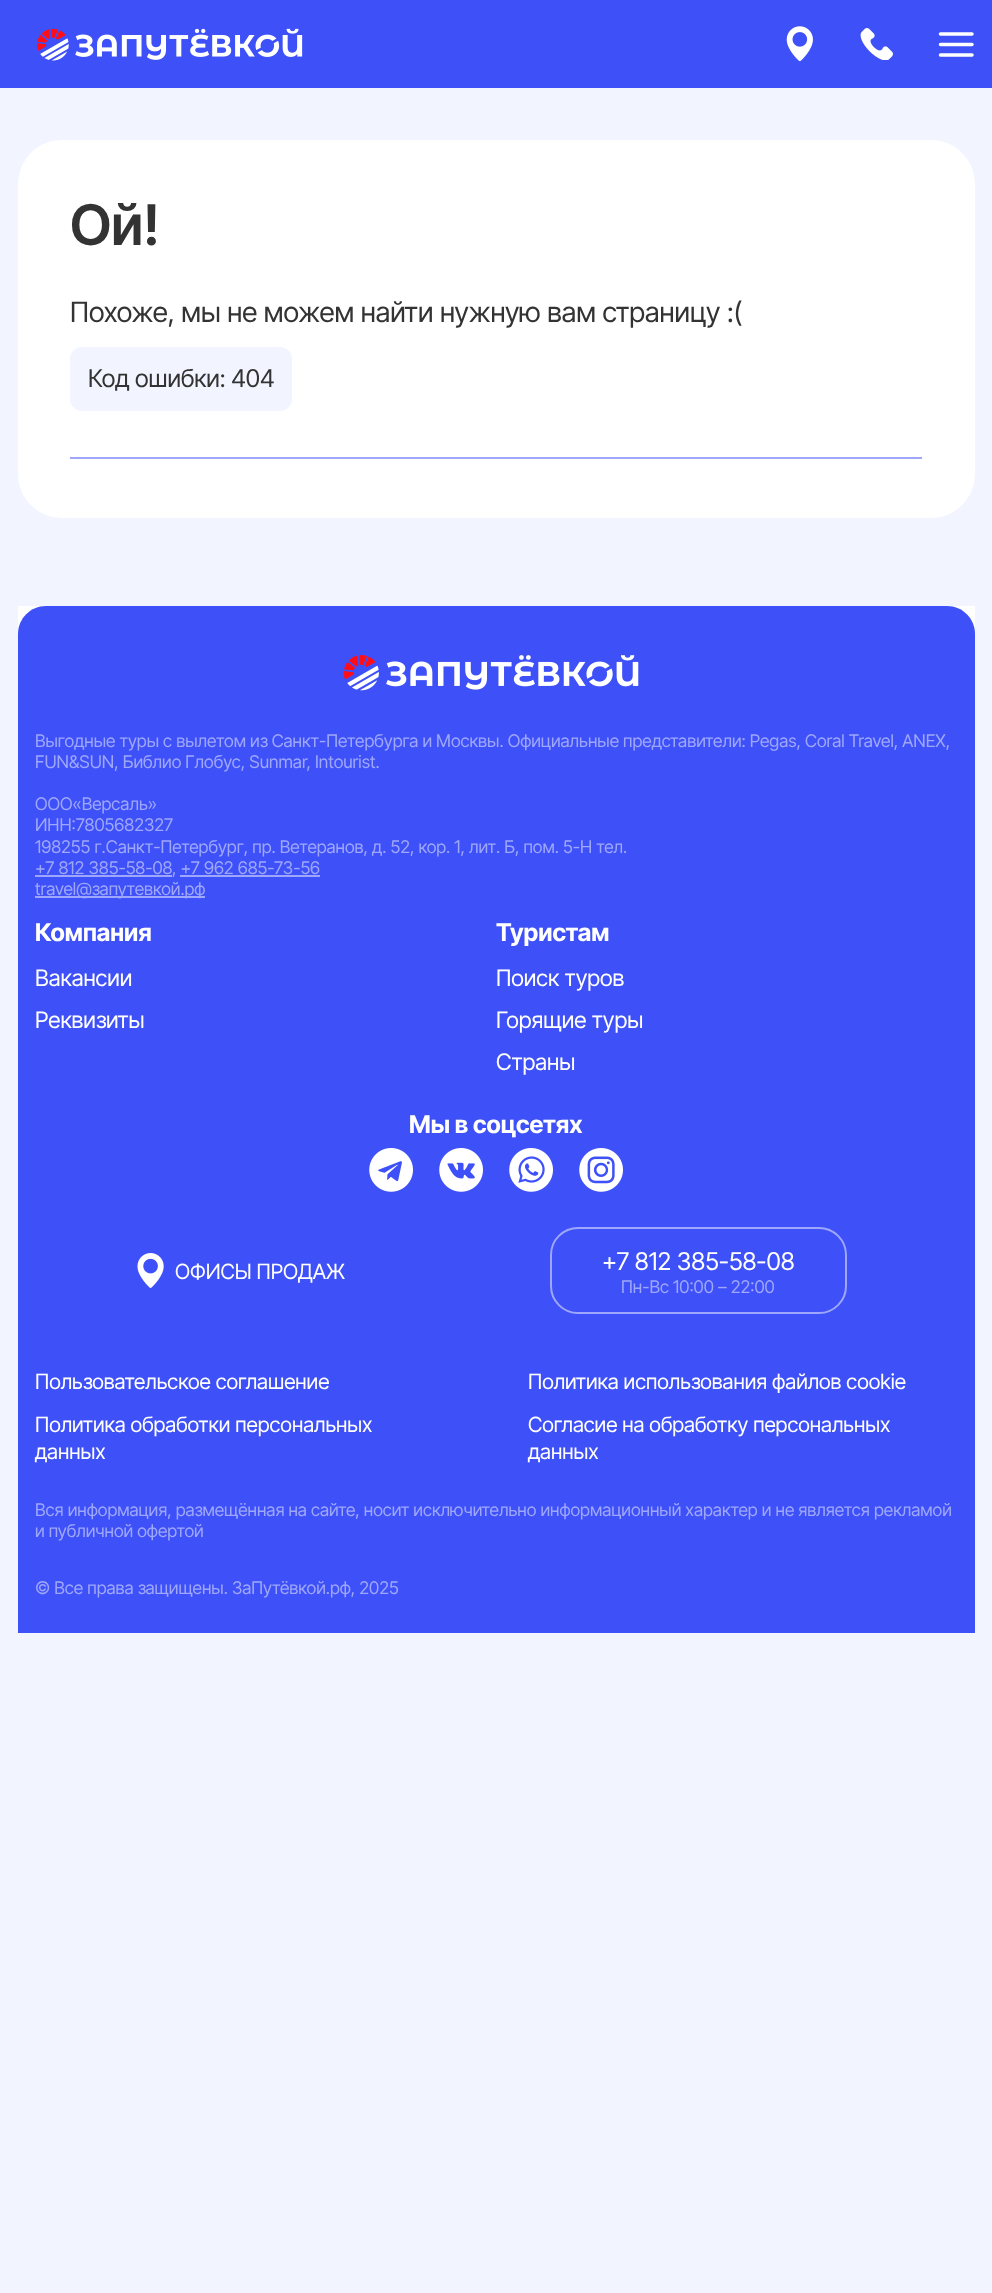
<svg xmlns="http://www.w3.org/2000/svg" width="992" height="2293">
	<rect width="100%" height="100%" fill="#F2F5FF" />
	<rect x="0" y="0" width="992" height="88" fill="#3E50F8" />
	<image x="37" y="28" width="266" height="33" href="assets/img1.png" />
	<image x="786" y="26" width="27" height="35" href="assets/img2.png" />
	<image x="860" y="28" width="33" height="32" href="assets/img3.png" />
	<path d="M940.5 34H972M940.5 44.5H972M940.5 55H972" fill="none" stroke="#FFFFFF" stroke-width="3.5" stroke-linecap="round" />
	<rect x="18" y="140" width="957" height="378" rx="44" fill="#FFFFFF" />
	<text x="70" y="245" font-family="Inter Tight" font-size="56" font-weight="600" fill="#333333">Ой!</text>
	<text x="70" y="322" font-family="Inter Tight" font-size="28" fill="#333333">Похоже, мы не можем найти нужную вам страницу :(</text>
	<rect x="70" y="347" width="222" height="64" rx="12" fill="#F2F5FF" />
	<text x="88" y="387" font-family="Inter Tight" font-size="24.5" fill="#333333">Код ошибки: 404</text>
	<rect x="70" y="457" width="852" height="2" fill="#9EA7FB" />
	<rect x="18" y="606" width="957" height="28" fill="#FFFFFF" />
	<path d="M46 606H947C962.5 606 975 618.5 975 634V1633H18V634C18 618.5 30.5 606 46 606Z" fill="#3E50F8" />
	<image x="343" y="655" width="296" height="36" href="assets/img4.png" />
	<g font-family="Inter Tight" font-size="17.5" fill="#9EA7FB">
		<text x="35" y="747">Выгодные туры с вылетом из Санкт-Петербурга и Москвы. Официальные представители: Pegas, Coral Travel, ANEX,</text>
		<text x="35" y="768">FUN&amp;SUN, Библио Глобус, Sunmar, Intourist.</text>
		<text x="35" y="810">ООО«Версаль»</text>
		<text x="35" y="831">ИНН:7805682327</text>
		<text x="35" y="853">198255 г.Санкт-Петербург, пр. Ветеранов, д. 52, кор. 1, лит. Б, пом. 5-Н тел.</text>
		<text x="35" y="874">+7 812 385-58-08</text>
	</g>
	<rect x="35" y="875" width="137" height="2" fill="#9EA7FB" />
	<text x="172" y="874" font-family="Inter Tight" font-size="17.5" fill="#9EA7FB">, +7 962 685-73-56</text>
	<rect x="180" y="875" width="140" height="2" fill="#9EA7FB" />
	<rect x="35" y="896" width="170" height="2" fill="#9EA7FB" />
	<text x="35" y="895" font-family="Inter Tight" font-size="17.5" fill="#9EA7FB">travel@запутевкой.рф</text>
	<text x="35" y="941" font-family="Inter Tight" font-size="24.5" font-weight="700" fill="#FFFFFF">Компания</text>
	<g font-family="Inter Tight" font-size="22.75" fill="#FFFFFF">
		<text x="35" y="986">Вакансии</text>
		<text x="35" y="1028">Реквизиты</text>
	</g>
	<text x="496" y="941" font-family="Inter Tight" font-size="24.5" font-weight="700" fill="#FFFFFF">Туристам</text>
	<g font-family="Inter Tight" font-size="22.75" fill="#FFFFFF">
		<text x="496" y="986">Поиск туров</text>
		<text x="496" y="1028">Горящие туры</text>
		<text x="496" y="1070">Страны</text>
	</g>
	<text x="409" y="1133" font-family="Inter Tight" font-size="24.5" font-weight="700" fill="#FFFFFF">Мы в соцсетях</text>
	<image x="369" y="1148" width="44" height="44" href="assets/img5.png" />
	<image x="439" y="1148" width="44" height="44" href="assets/img6.png" />
	<image x="509" y="1148" width="44" height="44" href="assets/img7.png" />
	<image x="579" y="1148" width="44" height="44" href="assets/img8.png" />
	<image x="137" y="1253" width="27" height="35" href="assets/img9.png" />
	<text x="175" y="1279" font-family="Inter Tight" font-size="21" fill="#FFFFFF">ОФИСЫ ПРОДАЖ</text>
	<rect x="551" y="1228" width="295" height="85" rx="27" fill="none" stroke="#9EA7FB" stroke-width="2" />
	<text x="602" y="1270" font-family="Inter Tight" font-size="24.5" fill="#FFFFFF">+7 812 385-58-08</text>
	<text x="621" y="1293" font-family="Inter Tight" font-size="17.5" fill="#9EA7FB">Пн-Вс 10:00 – 22:00</text>
	<g font-family="Inter Tight" font-size="21" fill="#FFFFFF">
		<text x="35" y="1389">Пользовательское соглашение</text>
		<text x="35" y="1432">Политика обработки персональных</text>
		<text x="35" y="1459">данных</text>
		<text x="528" y="1389">Политика использования файлов cookie</text>
		<text x="528" y="1432">Согласие на обработку персональных</text>
		<text x="528" y="1459">данных</text>
	</g>
	<g font-family="Inter Tight" font-size="17.5" fill="#9EA7FB">
		<text x="35" y="1516">Вся информация, размещённая на сайте, носит исключительно информационный характер и не является рекламой</text>
		<text x="35" y="1537">и публичной офертой</text>
		<text x="35" y="1594">© Все права защищены. ЗаПутёвкой.рф, 2025</text>
	</g>
</svg>
